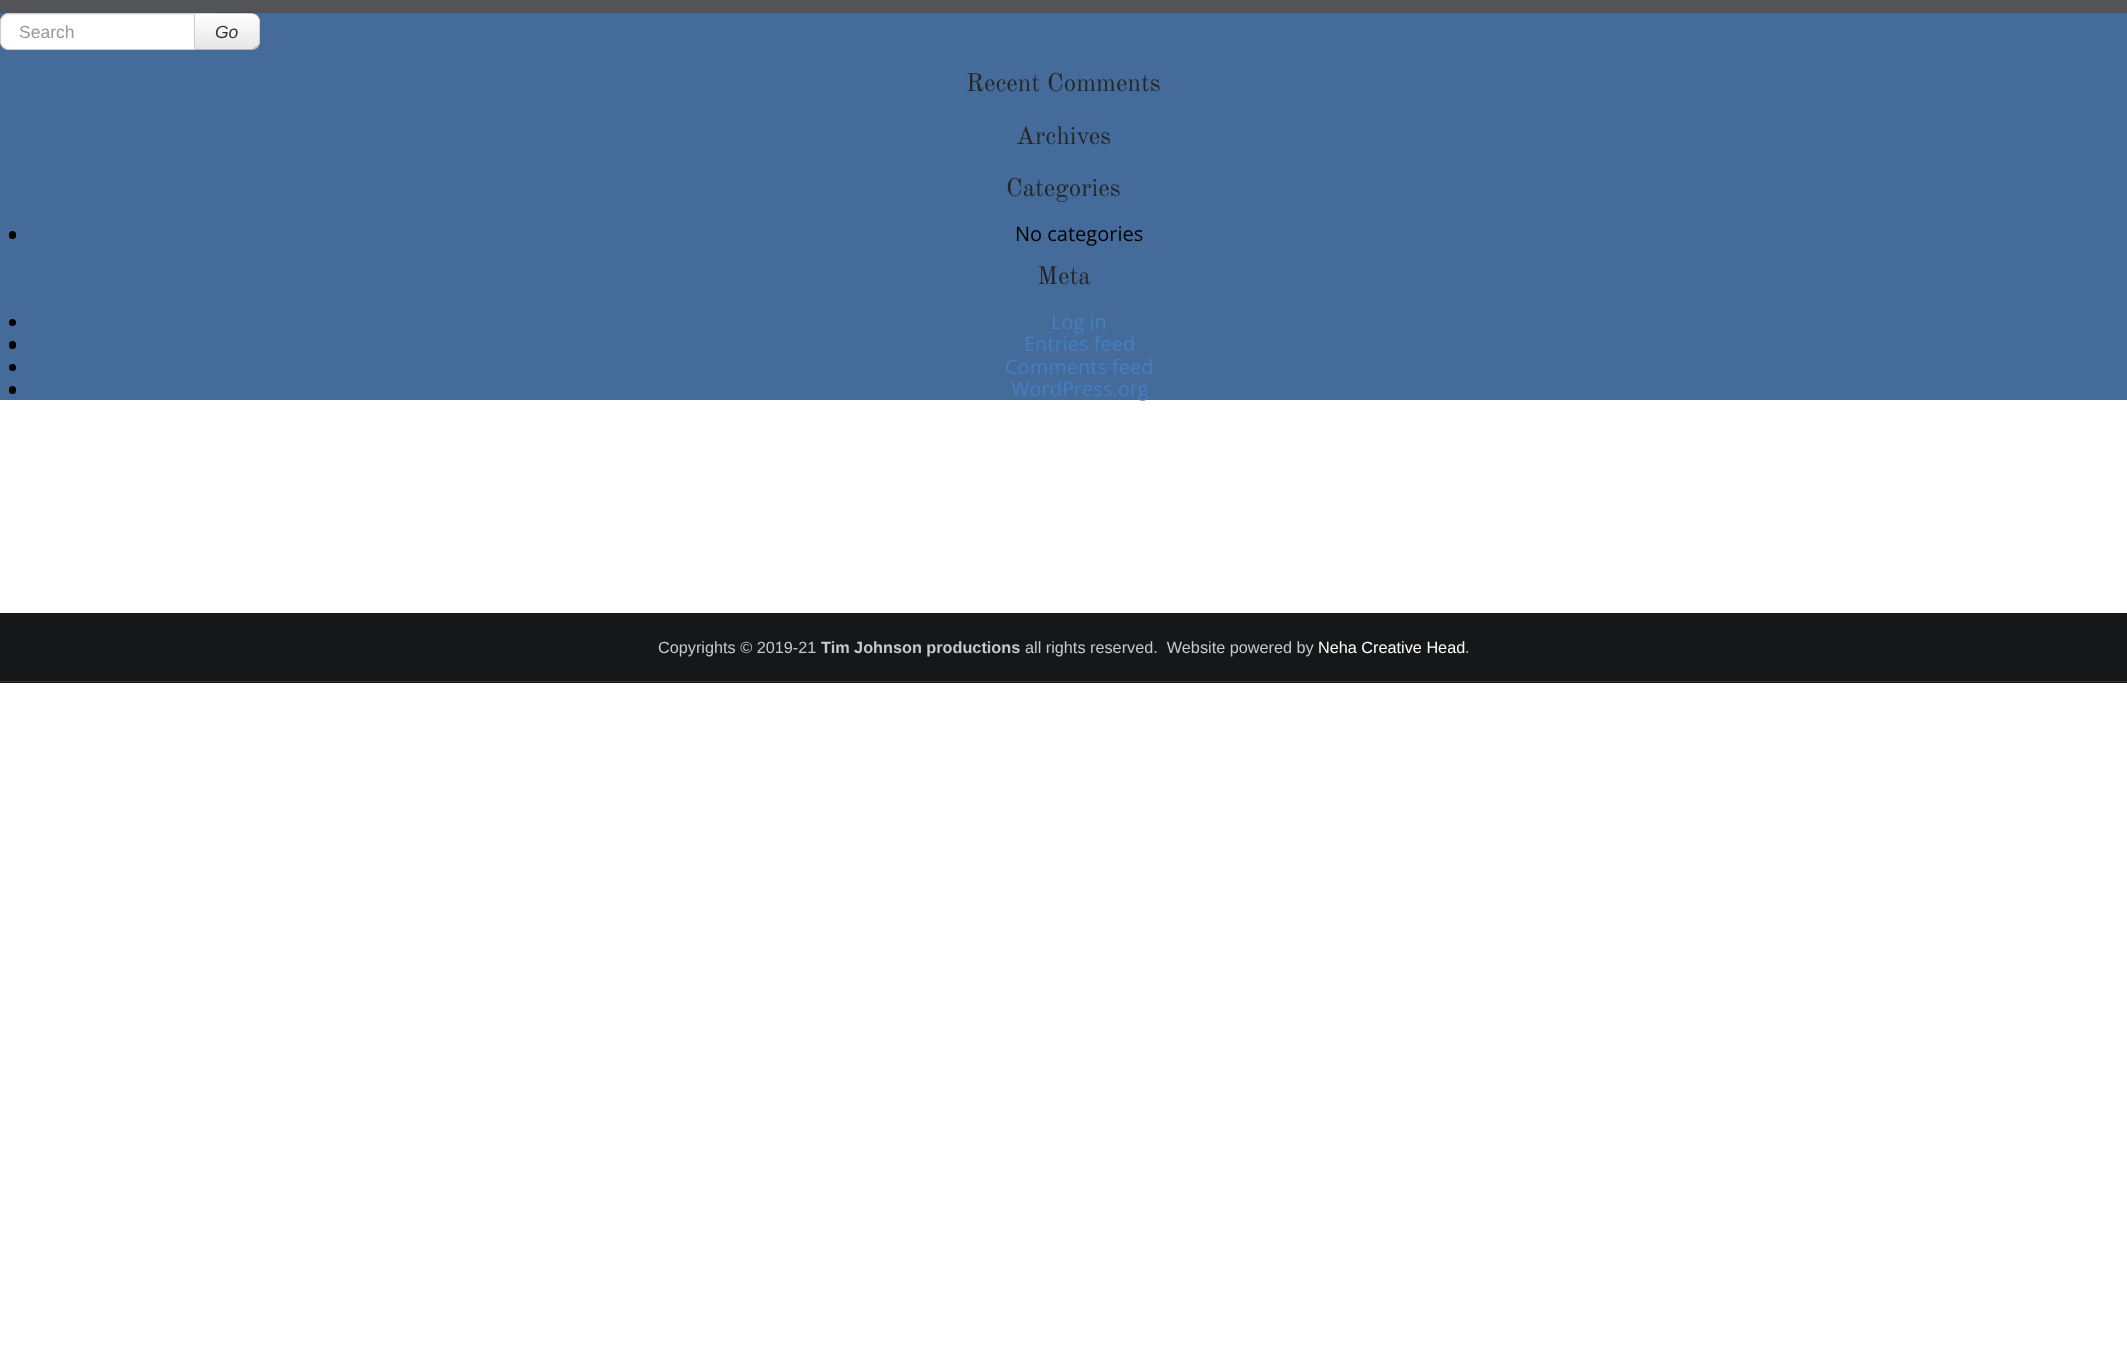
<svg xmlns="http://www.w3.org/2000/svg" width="2127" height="1352">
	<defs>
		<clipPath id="clip1"><path d="M194 13H251C256 13 260 17 260 22V41C260 46 256 50 251 50H194Z" /></clipPath>
		<linearGradient id="g1" gradientUnits="userSpaceOnUse" x1="227" y1="14" x2="227" y2="49"><stop offset="0" stop-color="#FFFFFF" /><stop offset="1" stop-color="#E6E6E6" /></linearGradient>
	</defs>
	<rect width="100%" height="100%" fill="#FFFFFF" />
	<rect x="0" y="13" width="2127" height="387" fill="#446B9A" />
	<rect x="0" y="0" width="2127" height="13" fill="#525458" />
	<path d="M194 13H251C256 13 260 17 260 22V41C260 46 256 50 251 50H194Z" fill="#F5F5F5" />
	<g clip-path="url(#clip1)">
		<rect x="195" y="14" width="65" height="35" fill="url(#g1)" />
	</g>
	<path d="M194 13L254 12L258 15L256 16C255 15 253 14 251 14H195Z" fill="#000000" fill-opacity="0.15" />
	<path d="M260 41V21C260 18.5 259 16.5 257.5 15L256.5 16C258 17 259 19 259 21V41C259 43 258 45 256.5 46.5L257.5 47.5C259 46 260 43.5 260 41Z" fill="#000000" fill-opacity="0.15" />
	<path d="M194 50H251C254 50 256 49 257 47L256 46C255 48 253 49 251 49H195Z" fill="#000000" fill-opacity="0.25" />
	<path d="M9 13H195V50H9C4 50 0 46 0 41V22C0 17 4 13 9 13Z" fill="#FFFFFF" />
	<path d="M9 15H194V14H9C5 14 1 18 1 22C1 18 5 15 9 15Z" fill="#ECECEC" />
	<path d="M9 13.5H194.5V49.5H9C4.5 49.5 .5 45.5 .5 41V22C.5 17.5 4.5 13.5 9 13.5Z" fill="none" stroke="#CCCCCC" />
	<text x="19" y="38" font-family="Liberation Sans" font-size="17.5" fill="#999999">Search</text>
	<text x="215" y="38" font-family="Liberation Sans" font-size="17.5" font-style="italic" fill="#333333">Go</text>
	<g font-family="Old Standard TT" font-size="25" fill="#252525">
		<text x="966" y="91">Recent Comments</text>
		<text x="1016" y="144">Archives</text>
		<text x="1006" y="196">Categories</text>
	</g>
	<rect x="9" y="231" width="7" height="8" rx="3.5" fill="#000000" />
	<text x="1015" y="241" font-family="Open Sans" font-size="20" fill="#000000">No categories</text>
	<text x="1037" y="284" font-family="Old Standard TT" font-size="25" fill="#252525">Meta</text>
	<circle cx="12.5" cy="322.5" r="3.5" fill="#000000" />
	<text x="1051" y="329" font-family="Open Sans" font-size="20" fill="#467FC2">Log in</text>
	<rect x="9" y="341" width="7" height="8" rx="3.5" fill="#000000" />
	<text x="1024" y="351" font-family="Open Sans" font-size="20" fill="#467FC2">Entries feed</text>
	<circle cx="12.5" cy="367.5" r="3.5" fill="#000000" />
	<text x="1005" y="374" font-family="Open Sans" font-size="20" fill="#467FC2">Comments feed</text>
	<rect x="9" y="386" width="7" height="8" rx="3.5" fill="#000000" />
	<text x="1011" y="396" font-family="Open Sans" font-size="20" fill="#467FC2">WordPress.org</text>
	<rect x="0" y="613" width="2127" height="70" fill="#161718" />
	<rect x="0" y="681" width="2127" height="1" fill="#333333" />
	<text x="658" y="653" font-family="Liberation Sans" font-size="16.25" fill="#C4CACF">Copyrights © 2019-21</text>
	<text x="821" y="653" font-family="Liberation Sans" font-size="16.25" font-weight="700" fill="#C4CACF">Tim Johnson productions</text>
	<text x="1025" y="653" font-family="Liberation Sans" font-size="16.25" fill="#C4CACF" xml:space="preserve">all rights reserved.  Website powered by</text>
	<text x="1318" y="653" font-family="Liberation Sans" font-size="16.25" fill="#FFFFFF">Neha Creative Head</text>
	<text x="1465" y="653" font-family="Liberation Sans" font-size="16.25" fill="#C4CACF">.</text>
</svg>
